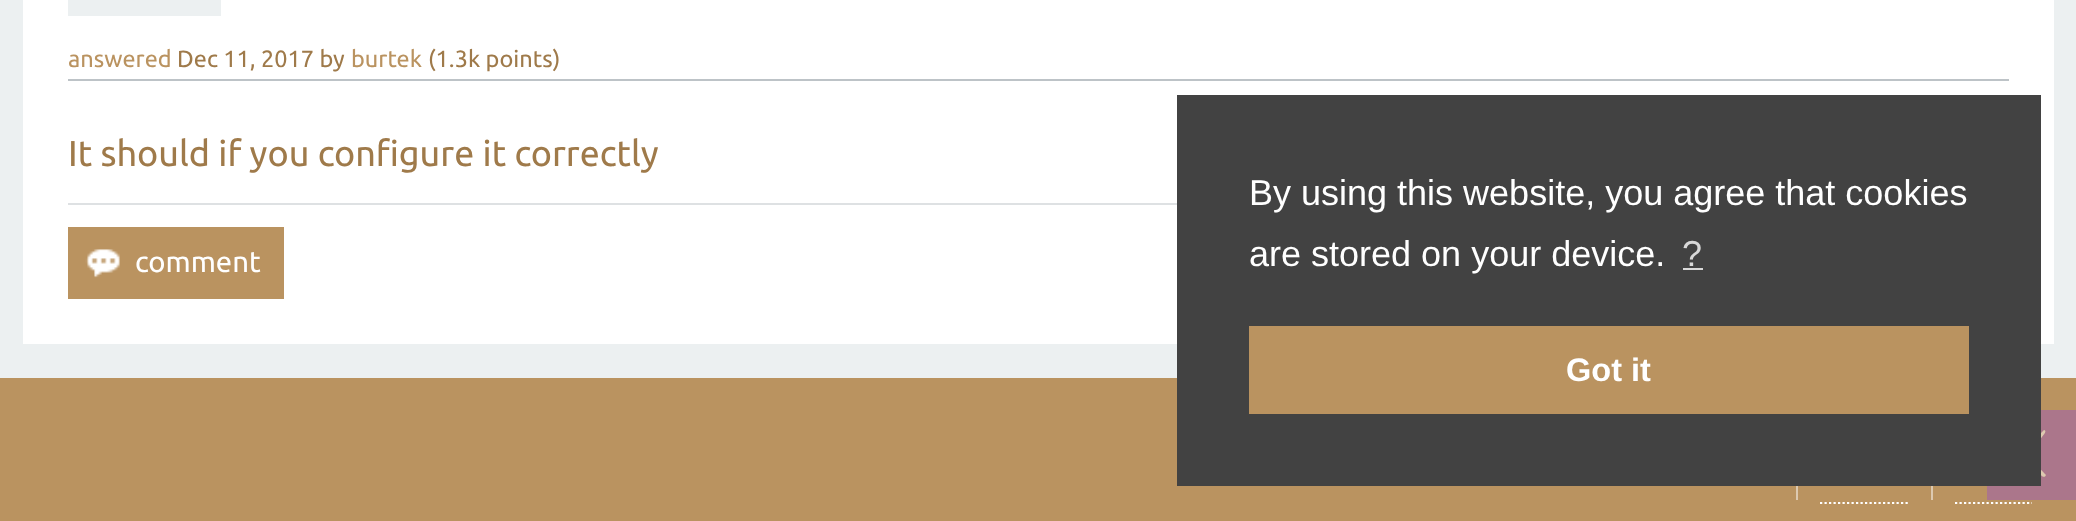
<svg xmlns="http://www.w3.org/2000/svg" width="2076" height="521">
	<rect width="100%" height="100%" fill="#ECF0F1" />
	<rect x="23" y="0" width="2031" height="344" fill="#FFFFFF" />
	<rect x="68" y="0" width="153" height="16" fill="#ECF0F1" />
	<rect x="68" y="79" width="1941" height="2" fill="#BDC3C7" />
	<text x="68" y="67" font-family="Ubuntu" font-size="23.5" fill="#BA9360">answered</text>
	<text x="177" y="67" font-family="Ubuntu" font-size="23.5" fill="#9F7A4A">Dec 11, 2017 by</text>
	<text x="351" y="67" font-family="Ubuntu" font-size="23.5" fill="#BA9360">burtek</text>
	<text x="428" y="67" font-family="Ubuntu" font-size="23.5" fill="#9F7A4A">(1.3k points)</text>
	<text x="68" y="166" font-family="Ubuntu" font-size="36" fill="#9F7A4A">It should if you configure it correctly</text>
	<rect x="68" y="203" width="1109" height="2" fill="#DEE1E3" />
	<rect x="68" y="227" width="216" height="72" fill="#BA9360" />
	<image x="85" y="249" width="35" height="29" href="assets/img1.png" />
	<text x="135" y="272" font-family="Ubuntu" font-size="29.25" fill="#FFFFFF">comment</text>
	<rect x="0" y="378" width="2076" height="143" fill="#BA9360" />
	<rect x="1987" y="410" width="89" height="90" fill="#9B59B6" fill-opacity="0.5" />
	<path d="M2045 474L2046 475C2044 480 2039 473 2039 473L2021 454V453L2043 431L2044 430C2048 431 2042 436 2042 437L2026 454Z" fill="#DDC9B0" />
	<rect x="1177" y="95" width="864" height="391" fill="#424242" />
	<g font-family="Liberation Sans" font-size="36" fill="#FFFFFF">
		<text x="1249" y="205">By using this website, you agree that cookies</text>
		<text x="1249" y="266">are stored on your device.</text>
	</g>
	<text x="1682" y="266" font-family="Liberation Sans" font-size="36" fill="#D9D9D9">?</text>
	<rect x="1683" y="268" width="20" height="2" fill="#D9D9D9" />
	<rect x="1249" y="326" width="720" height="88" fill="#BA9360" />
	<text x="1566" y="381" font-family="Liberation Sans" font-size="32.5" font-weight="700" fill="#FFFFFF">Got it</text>
	<rect x="1796" y="486" width="2" height="14" fill="#DDC9B0" />
	<rect x="1931" y="486" width="2" height="14" fill="#DDC9B0" />
	<path d="M1820 503H1908" fill="none" stroke="#FFFFFF" stroke-width="2.2" stroke-dasharray="2.25 2.25" />
	<path d="M1955 503H2032" fill="none" stroke="#FFFFFF" stroke-width="2.2" stroke-dasharray="2.25 2.25" />
</svg>
